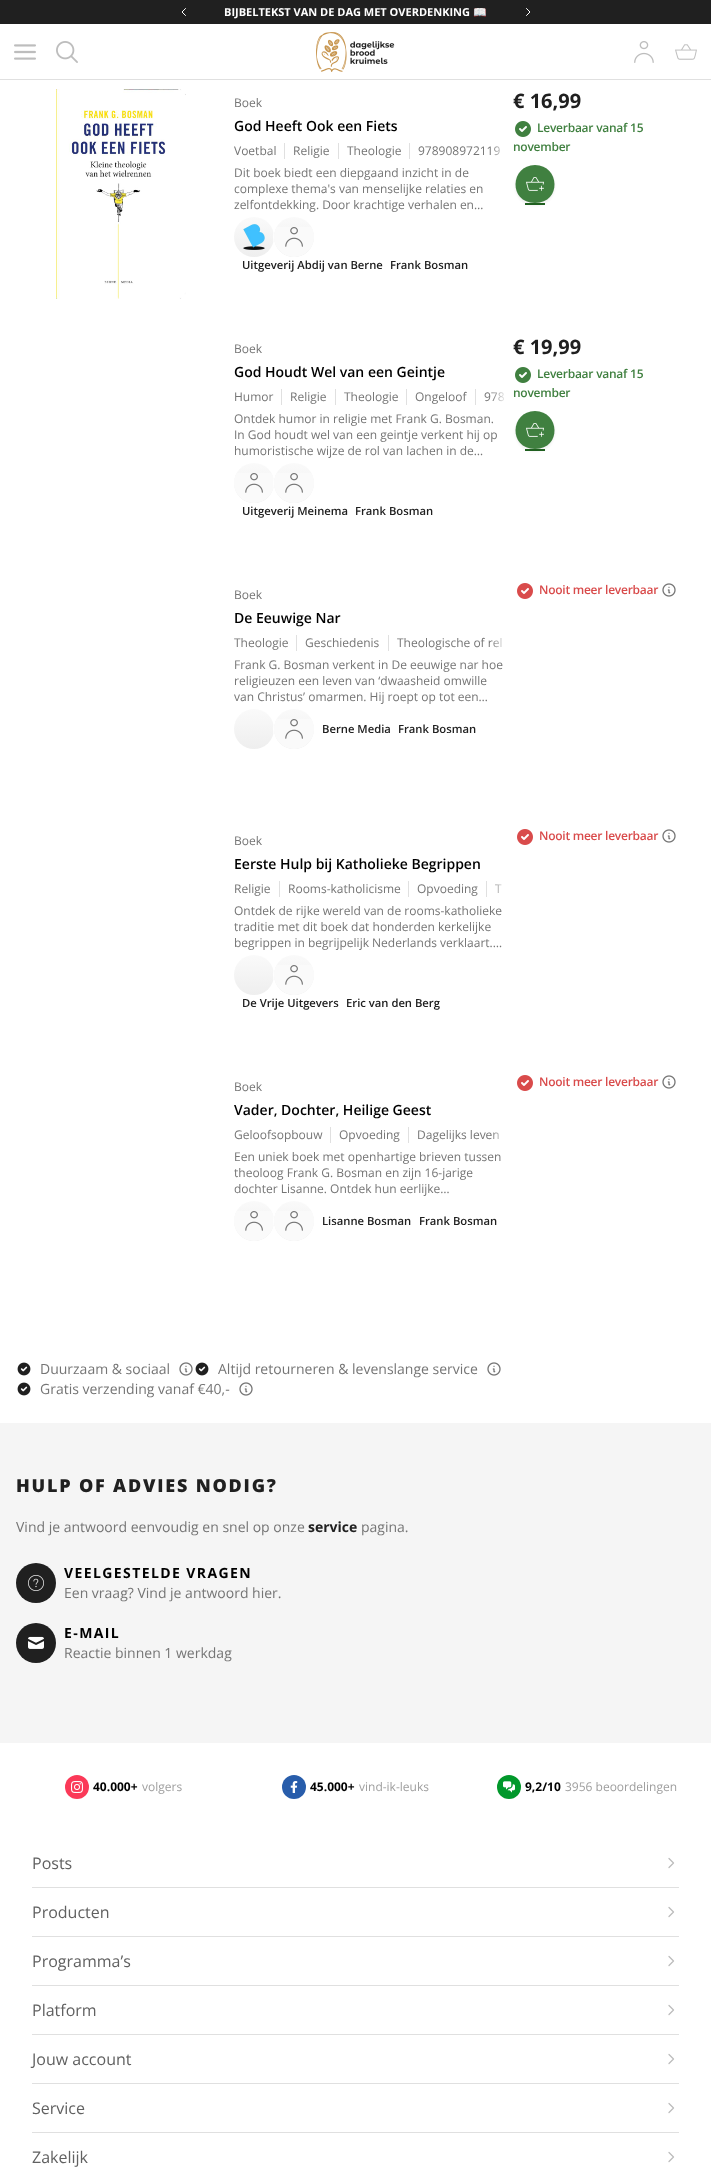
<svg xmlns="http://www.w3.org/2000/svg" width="711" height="2168">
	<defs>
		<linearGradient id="g1" gradientUnits="userSpaceOnUse" x1="491" y1="149" x2="507" y2="149"><stop offset="0" stop-color="#FFFFFF" stop-opacity="0" /><stop offset="1" stop-color="#FFFFFF" /></linearGradient>
		<linearGradient id="g2" gradientUnits="userSpaceOnUse" x1="254" y1="217" x2="254" y2="257"><stop offset="0" stop-color="#FAFAFA" /><stop offset="1" stop-color="#EEEEEE" /></linearGradient>
		<linearGradient id="g3" gradientUnits="userSpaceOnUse" x1="294" y1="217" x2="294" y2="257"><stop offset="0" stop-color="#FAFAFA" /><stop offset="1" stop-color="#EEEEEE" /></linearGradient>
		<linearGradient id="g4" gradientUnits="userSpaceOnUse" x1="491" y1="395" x2="507" y2="395"><stop offset="0" stop-color="#FFFFFF" stop-opacity="0" /><stop offset="1" stop-color="#FFFFFF" /></linearGradient>
		<linearGradient id="g5" gradientUnits="userSpaceOnUse" x1="254" y1="463" x2="254" y2="503"><stop offset="0" stop-color="#FAFAFA" /><stop offset="1" stop-color="#EEEEEE" /></linearGradient>
		<linearGradient id="g6" gradientUnits="userSpaceOnUse" x1="294" y1="463" x2="294" y2="503"><stop offset="0" stop-color="#FAFAFA" /><stop offset="1" stop-color="#EEEEEE" /></linearGradient>
		<linearGradient id="g7" gradientUnits="userSpaceOnUse" x1="491" y1="641" x2="507" y2="641"><stop offset="0" stop-color="#FFFFFF" stop-opacity="0" /><stop offset="1" stop-color="#FFFFFF" /></linearGradient>
		<linearGradient id="g8" gradientUnits="userSpaceOnUse" x1="254" y1="709" x2="254" y2="749"><stop offset="0" stop-color="#FAFAFA" /><stop offset="1" stop-color="#EEEEEE" /></linearGradient>
		<linearGradient id="g9" gradientUnits="userSpaceOnUse" x1="294" y1="709" x2="294" y2="749"><stop offset="0" stop-color="#FAFAFA" /><stop offset="1" stop-color="#EEEEEE" /></linearGradient>
		<linearGradient id="g10" gradientUnits="userSpaceOnUse" x1="491" y1="887" x2="507" y2="887"><stop offset="0" stop-color="#FFFFFF" stop-opacity="0" /><stop offset="1" stop-color="#FFFFFF" /></linearGradient>
		<linearGradient id="g11" gradientUnits="userSpaceOnUse" x1="254" y1="955" x2="254" y2="995"><stop offset="0" stop-color="#FAFAFA" /><stop offset="1" stop-color="#EEEEEE" /></linearGradient>
		<linearGradient id="g12" gradientUnits="userSpaceOnUse" x1="294" y1="955" x2="294" y2="995"><stop offset="0" stop-color="#FAFAFA" /><stop offset="1" stop-color="#EEEEEE" /></linearGradient>
		<linearGradient id="g13" gradientUnits="userSpaceOnUse" x1="491" y1="1133" x2="507" y2="1133"><stop offset="0" stop-color="#FFFFFF" stop-opacity="0" /><stop offset="1" stop-color="#FFFFFF" /></linearGradient>
		<linearGradient id="g14" gradientUnits="userSpaceOnUse" x1="254" y1="1201" x2="254" y2="1241"><stop offset="0" stop-color="#FAFAFA" /><stop offset="1" stop-color="#EEEEEE" /></linearGradient>
		<linearGradient id="g15" gradientUnits="userSpaceOnUse" x1="294" y1="1201" x2="294" y2="1241"><stop offset="0" stop-color="#FAFAFA" /><stop offset="1" stop-color="#EEEEEE" /></linearGradient>
	</defs>
	<rect width="100%" height="100%" fill="#FFFFFF" />
	<rect x="0" y="0" width="711" height="24" fill="#202020" />
	<path d="M185.5 15.5L182 12L185.5 8.5" fill="none" stroke="#FFFFFF" stroke-linecap="round" stroke-linejoin="round" />
	<text x="224" y="16" font-family="Open Sans" font-size="11" font-weight="700" fill="#FFFFFF">BIJBELTEKST VAN DE DAG MET OVERDENKING</text>
	<text x="473" y="16" font-family="Noto Color Emoji" font-size="11" font-weight="700" fill="#FFFFFF">📖</text>
	<path d="M526.5 8.5L530 12L526.5 15.5" fill="none" stroke="#FFFFFF" stroke-linecap="round" stroke-linejoin="round" />
	<rect x="0" y="79" width="711" height="1" fill="#E0E0E0" />
	<image x="14" y="44" width="22" height="16" href="assets/img1.png" />
	<image x="56" y="41" width="22" height="22" href="assets/img2.png" />
	<image x="316" y="32" width="79" height="40" href="assets/img3.png" />
	<image x="634" y="41" width="20" height="22" href="assets/img4.png" />
	<image x="675" y="44" width="22" height="16" href="assets/img5.png" />
	<image x="56" y="89" width="130" height="210" href="assets/img6.png" />
	<text x="234" y="107" font-family="Open Sans" font-size="12" fill="#757575">Boek</text>
	<text x="234" y="131" font-family="Open Sans" font-size="14" font-weight="600" fill="#000000">God Heeft Ook een Fiets</text>
	<rect x="284" y="143" width="1" height="16" fill="#E0E0E0" />
	<text x="234" y="155" font-family="Open Sans" font-size="12" fill="#757575">Voetbal</text>
	<rect x="338" y="143" width="1" height="16" fill="#E0E0E0" />
	<g font-family="Open Sans" font-size="12" fill="#757575">
		<text x="293" y="155">Religie</text>
		<text x="347" y="155">Theologie</text>
	</g>
	<rect x="409" y="143" width="1" height="16" fill="#E0E0E0" />
	<text x="418" y="155" font-family="Open Sans" font-size="12" fill="#757575">978908972119</text>
	<rect x="494" y="146" width="7" height="10" fill="url(#g1)" />
	<g font-family="Open Sans" font-size="12" fill="#757575">
		<text x="234" y="177">Dit boek biedt een diepgaand inzicht in de</text>
		<text x="234" y="193">complexe thema's van menselijke relaties en</text>
		<text x="234" y="209">zelfontdekking. Door krachtige verhalen en…</text>
	</g>
	<circle cx="254" cy="237" r="20" fill="url(#g2)" />
	<image x="243" y="224" width="22" height="26" href="assets/img7.png" />
	<circle cx="294" cy="237" r="20.5" fill="none" stroke="#FFFFFF" />
	<circle cx="294" cy="237" r="20" fill="url(#g3)" />
	<image x="274" y="227" width="40" height="30" href="assets/img8.png" />
	<g font-family="Open Sans" font-size="11.25" font-weight="600" fill="#202020">
		<text x="242" y="269">Uitgeverij Abdij van Berne</text>
		<text x="390" y="269">Frank Bosman</text>
	</g>
	<text x="513" y="108" font-family="Open Sans" font-size="20" font-weight="700" fill="#202020">€ 16,99</text>
	<image x="515" y="121" width="16" height="16" href="assets/img9.png" />
	<g font-family="Open Sans" font-size="12" font-weight="600" letter-spacing="-0.25" fill="#408040">
		<text x="537" y="132">Leverbaar vanaf 15</text>
		<text x="513" y="151">november</text>
	</g>
	<rect x="515" y="166" width="40" height="40" rx="20" fill="#000000" fill-opacity="0.05" filter="blur(1px)" />
	<path d="M535 165C560 165 562 203 535 203C508 203 510 165 535 165Z" fill="#408040" />
	<rect x="525" y="203" width="20" height="2" fill="#206020" />
	<image x="526" y="177" width="18" height="14" href="assets/img10.png" />
	<text x="234" y="353" font-family="Open Sans" font-size="12" fill="#757575">Boek</text>
	<text x="234" y="377" font-family="Open Sans" font-size="14" font-weight="600" fill="#000000">God Houdt Wel van een Geintje</text>
	<rect x="281" y="389" width="1" height="16" fill="#E0E0E0" />
	<text x="234" y="401" font-family="Open Sans" font-size="12" fill="#757575">Humor</text>
	<rect x="335" y="389" width="1" height="16" fill="#E0E0E0" />
	<text x="290" y="401" font-family="Open Sans" font-size="12" fill="#757575">Religie</text>
	<rect x="406" y="389" width="1" height="16" fill="#E0E0E0" />
	<g font-family="Open Sans" font-size="12" fill="#757575">
		<text x="344" y="401">Theologie</text>
		<text x="415" y="401">Ongeloof</text>
	</g>
	<rect x="475" y="389" width="1" height="16" fill="#E0E0E0" />
	<text x="484" y="401" font-family="Open Sans" font-size="12" fill="#757575">978</text>
	<rect x="492" y="392" width="12" height="10" fill="url(#g4)" />
	<g font-family="Open Sans" font-size="12" fill="#757575">
		<text x="234" y="423">Ontdek humor in religie met Frank G. Bosman.</text>
		<text x="234" y="439">In God houdt wel van een geintje verkent hij op</text>
		<text x="234" y="455">humoristische wijze de rol van lachen in de…</text>
	</g>
	<circle cx="254" cy="483" r="20" fill="url(#g5)" />
	<image x="234" y="473" width="40" height="30" href="assets/img8.png" />
	<circle cx="294" cy="483" r="20.5" fill="none" stroke="#FFFFFF" />
	<circle cx="294" cy="483" r="20" fill="url(#g6)" />
	<image x="274" y="473" width="40" height="30" href="assets/img8.png" />
	<g font-family="Open Sans" font-size="11.25" font-weight="600" fill="#202020">
		<text x="242" y="515">Uitgeverij Meinema</text>
		<text x="355" y="515">Frank Bosman</text>
	</g>
	<text x="513" y="354" font-family="Open Sans" font-size="20" font-weight="700" fill="#202020">€ 19,99</text>
	<image x="515" y="367" width="16" height="16" href="assets/img9.png" />
	<g font-family="Open Sans" font-size="12" font-weight="600" letter-spacing="-0.25" fill="#408040">
		<text x="537" y="378">Leverbaar vanaf 15</text>
		<text x="513" y="397">november</text>
	</g>
	<rect x="515" y="412" width="40" height="40" rx="20" fill="#000000" fill-opacity="0.05" filter="blur(1px)" />
	<path d="M535 411C560 411 562 449 535 449C508 449 510 411 535 411Z" fill="#408040" />
	<rect x="525" y="449" width="20" height="2" fill="#206020" />
	<image x="526" y="423" width="18" height="14" href="assets/img10.png" />
	<text x="234" y="599" font-family="Open Sans" font-size="12" fill="#757575">Boek</text>
	<text x="234" y="623" font-family="Open Sans" font-size="14" font-weight="600" fill="#000000">De Eeuwige Nar</text>
	<rect x="296" y="635" width="1" height="16" fill="#E0E0E0" />
	<text x="234" y="647" font-family="Open Sans" font-size="12" fill="#757575">Theologie</text>
	<rect x="388" y="635" width="1" height="16" fill="#E0E0E0" />
	<g font-family="Open Sans" font-size="12" fill="#757575">
		<text x="305" y="647">Geschiedenis</text>
		<text x="397" y="647">Theologische of rel</text>
	</g>
	<rect x="493" y="637" width="9" height="11" fill="url(#g7)" />
	<g font-family="Open Sans" font-size="12" fill="#757575">
		<text x="234" y="669">Frank G. Bosman verkent in De eeuwige nar hoe</text>
		<text x="234" y="685">religieuzen een leven van ‘dwaasheid omwille</text>
		<text x="234" y="701">van Christus’ omarmen. Hij roept op tot een…</text>
	</g>
	<circle cx="254" cy="729" r="20" fill="url(#g8)" />
	<circle cx="294" cy="729" r="20.5" fill="none" stroke="#FFFFFF" />
	<circle cx="294" cy="729" r="20" fill="url(#g9)" />
	<image x="274" y="719" width="40" height="30" href="assets/img8.png" />
	<g font-family="Open Sans" font-size="11.25" font-weight="600" fill="#202020">
		<text x="322" y="733">Berne Media</text>
		<text x="398" y="733">Frank Bosman</text>
	</g>
	<image x="517" y="583" width="16" height="16" href="assets/img11.png" />
	<text x="539" y="594" font-family="Open Sans" font-size="12" font-weight="600" letter-spacing="-0.25" fill="#D94B4B">Nooit meer leverbaar</text>
	<image x="662" y="583" width="14" height="14" href="assets/img12.png" />
	<text x="234" y="845" font-family="Open Sans" font-size="12" fill="#757575">Boek</text>
	<text x="234" y="869" font-family="Open Sans" font-size="14" font-weight="600" fill="#000000">Eerste Hulp bij Katholieke Begrippen</text>
	<rect x="279" y="881" width="1" height="16" fill="#E0E0E0" />
	<text x="234" y="893" font-family="Open Sans" font-size="12" fill="#757575">Religie</text>
	<rect x="408" y="881" width="1" height="16" fill="#E0E0E0" />
	<text x="288" y="893" font-family="Open Sans" font-size="12" fill="#757575">Rooms-katholicisme</text>
	<rect x="486" y="881" width="1" height="16" fill="#E0E0E0" />
	<g font-family="Open Sans" font-size="12" fill="#757575">
		<text x="417" y="893">Opvoeding</text>
		<text x="495" y="893">T</text>
	</g>
	<rect x="495" y="884" width="7" height="9" fill="url(#g10)" />
	<g font-family="Open Sans" font-size="12" fill="#757575">
		<text x="234" y="915">Ontdek de rijke wereld van de rooms-katholieke</text>
		<text x="234" y="931">traditie met dit boek dat honderden kerkelijke</text>
		<text x="234" y="947">begrippen in begrijpelijk Nederlands verklaart.…</text>
	</g>
	<circle cx="254" cy="975" r="20" fill="url(#g11)" />
	<circle cx="294" cy="975" r="20.5" fill="none" stroke="#FFFFFF" />
	<circle cx="294" cy="975" r="20" fill="url(#g12)" />
	<image x="274" y="965" width="40" height="30" href="assets/img8.png" />
	<g font-family="Open Sans" font-size="11.25" font-weight="600" fill="#202020">
		<text x="242" y="1007">De Vrije Uitgevers</text>
		<text x="346" y="1007">Eric van den Berg</text>
	</g>
	<image x="517" y="829" width="16" height="16" href="assets/img11.png" />
	<text x="539" y="840" font-family="Open Sans" font-size="12" font-weight="600" letter-spacing="-0.25" fill="#D94B4B">Nooit meer leverbaar</text>
	<image x="662" y="829" width="14" height="14" href="assets/img12.png" />
	<text x="234" y="1091" font-family="Open Sans" font-size="12" fill="#757575">Boek</text>
	<text x="234" y="1115" font-family="Open Sans" font-size="14" font-weight="600" fill="#000000">Vader, Dochter, Heilige Geest</text>
	<rect x="330" y="1127" width="1" height="16" fill="#E0E0E0" />
	<text x="234" y="1139" font-family="Open Sans" font-size="12" fill="#757575">Geloofsopbouw</text>
	<rect x="408" y="1127" width="1" height="16" fill="#E0E0E0" />
	<g font-family="Open Sans" font-size="12" fill="#757575">
		<text x="339" y="1139">Opvoeding</text>
		<text x="417" y="1139">Dagelijks leven</text>
	</g>
	<rect x="491" y="1132" width="9" height="7" fill="url(#g13)" />
	<g font-family="Open Sans" font-size="12" fill="#757575">
		<text x="234" y="1161">Een uniek boek met openhartige brieven tussen</text>
		<text x="234" y="1177">theoloog Frank G. Bosman en zijn 16-jarige</text>
		<text x="234" y="1193">dochter Lisanne. Ontdek hun eerlijke…</text>
	</g>
	<circle cx="254" cy="1221" r="20" fill="url(#g14)" />
	<image x="234" y="1211" width="40" height="30" href="assets/img8.png" />
	<circle cx="294" cy="1221" r="20.5" fill="none" stroke="#FFFFFF" />
	<circle cx="294" cy="1221" r="20" fill="url(#g15)" />
	<image x="274" y="1211" width="40" height="30" href="assets/img8.png" />
	<g font-family="Open Sans" font-size="11.25" font-weight="600" fill="#202020">
		<text x="322" y="1225">Lisanne Bosman</text>
		<text x="419" y="1225">Frank Bosman</text>
	</g>
	<image x="517" y="1075" width="16" height="16" href="assets/img11.png" />
	<text x="539" y="1086" font-family="Open Sans" font-size="12" font-weight="600" letter-spacing="-0.25" fill="#D94B4B">Nooit meer leverbaar</text>
	<image x="662" y="1075" width="14" height="14" href="assets/img12.png" />
	<image x="17" y="1362" width="14" height="14" href="assets/img13.png" />
	<text x="40" y="1374" font-family="Open Sans" font-size="14" fill="#757575">Duurzaam &amp; sociaal</text>
	<image x="179" y="1362" width="14" height="14" href="assets/img12.png" />
	<image x="195" y="1362" width="14" height="14" href="assets/img13.png" />
	<text x="218" y="1374" font-family="Open Sans" font-size="14" fill="#757575">Altijd retourneren &amp; levenslange service</text>
	<image x="487" y="1362" width="14" height="14" href="assets/img12.png" />
	<image x="17" y="1382" width="14" height="14" href="assets/img13.png" />
	<text x="40" y="1394" font-family="Open Sans" font-size="14" fill="#757575">Gratis verzending vanaf €40,-</text>
	<image x="239" y="1382" width="14" height="14" href="assets/img12.png" />
	<rect x="0" y="1423" width="711" height="320" fill="#F5F5F5" />
	<text x="16" y="1492" font-family="Open Sans" font-size="18" font-weight="800" letter-spacing="1.8" fill="#202020">HULP OF ADVIES NODIG?</text>
	<text x="16" y="1532" font-family="Open Sans" font-size="14" fill="#757575">Vind je antwoord eenvoudig en snel op onze</text>
	<text x="308" y="1532" font-family="Open Sans" font-size="14" font-weight="700" fill="#202020">service</text>
	<text x="361" y="1532" font-family="Open Sans" font-size="14" fill="#757575">pagina.</text>
	<circle cx="36" cy="1583" r="20" fill="#202020" />
	<image x="28" y="1575" width="16" height="16" href="assets/img14.png" />
	<text x="64" y="1578" font-family="Open Sans" font-size="14" font-weight="700" letter-spacing="1.4" fill="#000000">VEELGESTELDE VRAGEN</text>
	<text x="64" y="1598" font-family="Open Sans" font-size="14" fill="#757575">Een vraag? Vind je antwoord hier.</text>
	<circle cx="36" cy="1643" r="20" fill="#202020" />
	<image x="28" y="1636" width="16" height="13" href="assets/img15.png" />
	<text x="64" y="1638" font-family="Open Sans" font-size="14" font-weight="700" letter-spacing="1.4" fill="#000000">E-MAIL</text>
	<text x="64" y="1658" font-family="Open Sans" font-size="14" fill="#757575">Reactie binnen 1 werkdag</text>
	<circle cx="77" cy="1787" r="12" fill="#FB3958" />
	<image x="71" y="1781" width="12" height="12" href="assets/img16.png" />
	<text x="93" y="1791" font-family="Open Sans" font-size="12" font-weight="700" fill="#000000">40.000+</text>
	<text x="142" y="1791" font-family="Open Sans" font-size="12" fill="#9E9E9E">volgers</text>
	<circle cx="294" cy="1787" r="12" fill="#285DAB" />
	<image x="290" y="1781" width="8" height="12" href="assets/img17.png" />
	<text x="310" y="1791" font-family="Open Sans" font-size="12" font-weight="700" fill="#000000">45.000+</text>
	<text x="359" y="1791" font-family="Open Sans" font-size="12" fill="#9E9E9E">vind-ik-leuks</text>
	<circle cx="509" cy="1787" r="12" fill="#01982B" />
	<image x="503" y="1781" width="12" height="12" href="assets/img18.png" />
	<text x="525" y="1791" font-family="Open Sans" font-size="12" font-weight="700" fill="#000000">9,2/10</text>
	<text x="565" y="1791" font-family="Open Sans" font-size="12" fill="#9E9E9E">3956 beoordelingen</text>
	<rect x="32" y="1887" width="647" height="1" fill="#E0E0E0" />
	<text x="32" y="1869" font-family="Open Sans" font-size="16" fill="#616161">Posts</text>
	<path d="M669 1858.5L673.5 1863L669 1867.5" fill="none" stroke="#BDBDBD" stroke-width="1.3" stroke-linecap="round" stroke-linejoin="round" />
	<rect x="32" y="1936" width="647" height="1" fill="#E0E0E0" />
	<text x="32" y="1918" font-family="Open Sans" font-size="16" fill="#616161">Producten</text>
	<path d="M669 1907.5L673.5 1912L669 1916.5" fill="none" stroke="#BDBDBD" stroke-width="1.3" stroke-linecap="round" stroke-linejoin="round" />
	<rect x="32" y="1985" width="647" height="1" fill="#E0E0E0" />
	<text x="32" y="1967" font-family="Open Sans" font-size="16" fill="#616161">Programma’s</text>
	<path d="M669 1956.5L673.5 1961L669 1965.5" fill="none" stroke="#BDBDBD" stroke-width="1.3" stroke-linecap="round" stroke-linejoin="round" />
	<rect x="32" y="2034" width="647" height="1" fill="#E0E0E0" />
	<text x="32" y="2016" font-family="Open Sans" font-size="16" fill="#616161">Platform</text>
	<path d="M669 2005.5L673.5 2010L669 2014.5" fill="none" stroke="#BDBDBD" stroke-width="1.3" stroke-linecap="round" stroke-linejoin="round" />
	<rect x="32" y="2083" width="647" height="1" fill="#E0E0E0" />
	<text x="32" y="2065" font-family="Open Sans" font-size="16" fill="#616161">Jouw account</text>
	<path d="M669 2054.5L673.5 2059L669 2063.5" fill="none" stroke="#BDBDBD" stroke-width="1.3" stroke-linecap="round" stroke-linejoin="round" />
	<rect x="32" y="2132" width="647" height="1" fill="#E0E0E0" />
	<text x="32" y="2114" font-family="Open Sans" font-size="16" fill="#616161">Service</text>
	<path d="M669 2103.5L673.5 2108L669 2112.5" fill="none" stroke="#BDBDBD" stroke-width="1.3" stroke-linecap="round" stroke-linejoin="round" />
	<text x="32" y="2163" font-family="Open Sans" font-size="16" fill="#616161">Zakelijk</text>
	<path d="M669 2152.5L673.5 2157L669 2161.5" fill="none" stroke="#BDBDBD" stroke-width="1.3" stroke-linecap="round" stroke-linejoin="round" />
</svg>
